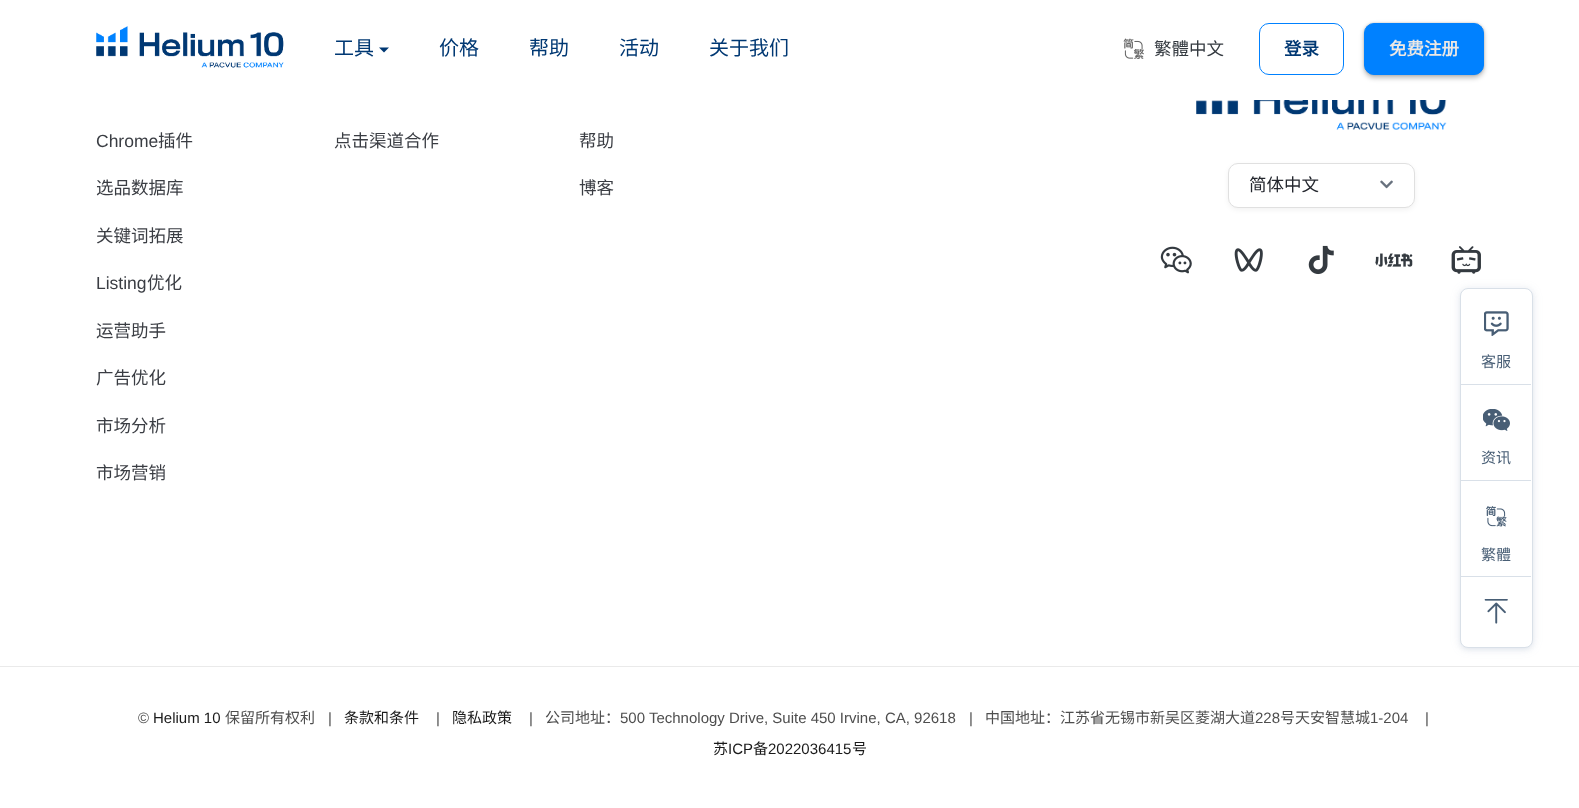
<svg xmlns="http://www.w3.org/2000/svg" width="1579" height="808">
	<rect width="100%" height="100%" fill="#FFFFFF" />
	<image x="96" y="26" width="188" height="42" href="assets/img1.png" />
	<text x="334" y="55" font-family="Noto Sans CJK SC" font-size="20" fill="#003873">工具</text>
	<path d="M379 47.5H389L384 52.5Z" fill="#003873" />
	<g font-family="Noto Sans CJK SC" font-size="20" fill="#003873">
		<text x="439" y="55">价格</text>
		<text x="529" y="55">帮助</text>
		<text x="619" y="55">活动</text>
		<text x="709" y="55">关于我们</text>
	</g>
	<image x="1123" y="38" width="21" height="21" href="assets/img2.png" />
	<text x="1154" y="55" font-family="Noto Sans CJK SC" font-size="17.5" fill="#343A40">繁體中文</text>
	<rect x="1259.5" y="23.5" width="84" height="51" rx="9.5" fill="none" stroke="#0081FF" />
	<text x="1284" y="55" font-family="Noto Sans CJK SC" font-size="17.5" font-weight="700" fill="#003873">登录</text>
	<rect x="1364" y="23" width="120" height="52" rx="10" fill="#000000" fill-opacity="0.16" filter="blur(1px)" />
	<rect x="1364" y="25" width="120" height="53" rx="10" fill="#000000" fill-opacity="0.26" filter="blur(2.5px)" />
	<rect x="1364.5" y="23.5" width="119" height="51" rx="9.5" fill="#0081FF" stroke="#0081FF" />
	<text x="1389" y="55" font-family="Noto Sans CJK SC" font-size="17.5" font-weight="700" fill="#EDE8E4">免费注册</text>
	<text x="96" y="147" font-family="Liberation Sans" font-size="17.5" fill="#3A3D43">Chrome</text>
	<g font-family="Noto Sans CJK SC" font-size="17.5" fill="#3A3D43">
		<text x="158" y="147">插件</text>
		<text x="96" y="194">选品数据库</text>
		<text x="96" y="242">关键词拓展</text>
	</g>
	<text x="96" y="289" font-family="Liberation Sans" font-size="17.5" fill="#3A3D43">Listing</text>
	<g font-family="Noto Sans CJK SC" font-size="17.5" fill="#3A3D43">
		<text x="147" y="289">优化</text>
		<text x="96" y="337">运营助手</text>
		<text x="96" y="384">广告优化</text>
		<text x="96" y="432">市场分析</text>
		<text x="96" y="479">市场营销</text>
		<text x="334" y="147">点击渠道合作</text>
		<text x="579" y="147">帮助</text>
		<text x="579" y="194">博客</text>
	</g>
	<image x="1196" y="100" width="251" height="30" href="assets/img3.png" />
	<rect x="1228" y="165" width="187" height="45" rx="10" fill="#000000" fill-opacity="0.05" filter="blur(2.5px)" />
	<rect x="1228.5" y="163.5" width="186" height="44" rx="9.5" fill="#FFFFFF" stroke="#E0E0E0" />
	<text x="1249" y="191" font-family="Noto Sans CJK SC" font-size="17.5" fill="#24272E">简体中文</text>
	<image x="1380" y="180" width="13" height="9" href="assets/img4.png" />
	<image x="1160" y="246" width="32" height="28" href="assets/img5.png" />
	<image x="1234" y="248" width="29" height="24" href="assets/img6.png" />
	<image x="1308" y="245" width="26" height="30" href="assets/img7.png" />
	<image x="1375" y="253" width="38" height="14" href="assets/img8.png" />
	<image x="1451" y="246" width="30" height="28" href="assets/img9.png" />
	<rect x="0" y="666" width="1579" height="1" fill="#EAEAEA" />
	<text x="138" y="723" font-family="Liberation Sans" font-size="15" fill="#4E4E4E">©</text>
	<text x="153" y="723" font-family="Liberation Sans" font-size="15" fill="#1A1A1A">Helium 10</text>
	<text x="225" y="723" font-family="Noto Sans CJK SC" font-size="15" fill="#4E4E4E">保留所有权利</text>
	<text x="328" y="723" font-family="Liberation Sans" font-size="15" fill="#4E4E4E">|</text>
	<text x="344" y="723" font-family="Noto Sans CJK SC" font-size="15" fill="#1A1A1A">条款和条件</text>
	<text x="436" y="723" font-family="Liberation Sans" font-size="15" fill="#4E4E4E">|</text>
	<text x="452" y="723" font-family="Noto Sans CJK SC" font-size="15" fill="#1A1A1A">隐私政策</text>
	<text x="529" y="723" font-family="Liberation Sans" font-size="15" fill="#4E4E4E">|</text>
	<text x="545" y="723" font-family="Noto Sans CJK SC" font-size="15" fill="#4E4E4E">公司地址：</text>
	<g font-family="Liberation Sans" font-size="15" fill="#4E4E4E">
		<text x="620" y="723">500 Technology Drive, Suite 450 Irvine, CA, 92618</text>
		<text x="969" y="723">|</text>
	</g>
	<text x="985" y="723" font-family="Noto Sans CJK SC" font-size="15" fill="#4E4E4E">中国地址：江苏省无锡市新吴区菱湖大道</text>
	<text x="1255" y="723" font-family="Liberation Sans" font-size="15" fill="#4E4E4E">228</text>
	<text x="1280" y="723" font-family="Noto Sans CJK SC" font-size="15" fill="#4E4E4E">号天安智慧城</text>
	<g font-family="Liberation Sans" font-size="15" fill="#4E4E4E">
		<text x="1370" y="723">1-204</text>
		<text x="1425" y="723">|</text>
	</g>
	<text x="713" y="754" font-family="Noto Sans CJK SC" font-size="15" fill="#1A1A1A">苏</text>
	<text x="728" y="754" font-family="Liberation Sans" font-size="15" fill="#1A1A1A">ICP</text>
	<text x="753" y="754" font-family="Noto Sans CJK SC" font-size="15" fill="#1A1A1A">备</text>
	<text x="768" y="754" font-family="Liberation Sans" font-size="15" fill="#1A1A1A">2022036415</text>
	<text x="852" y="754" font-family="Noto Sans CJK SC" font-size="15" fill="#1A1A1A">号</text>
	<rect x="1460" y="289" width="73" height="360" rx="8" fill="#6784A2" fill-opacity="0.16" filter="blur(5px)" />
	<rect x="1460" y="290" width="73" height="360" rx="8" fill="#6784A2" fill-opacity="0.08" filter="blur(2px)" />
	<rect x="1460.5" y="288.5" width="72" height="359" rx="7.5" fill="#FFFFFF" stroke="#D9E0E8" />
	<image x="1484" y="311" width="25" height="25" href="assets/img10.png" />
	<text x="1481" y="367" font-family="Noto Sans CJK SC" font-size="15" fill="#485E75">客服</text>
	<rect x="1461" y="384" width="70" height="1" fill="#D9E0E8" />
	<image x="1483" y="409" width="27" height="22" href="assets/img11.png" />
	<text x="1481" y="463" font-family="Noto Sans CJK SC" font-size="15" fill="#485E75">资讯</text>
	<rect x="1461" y="480" width="70" height="1" fill="#D9E0E8" />
	<image x="1486" y="506" width="21" height="21" href="assets/img12.png" />
	<text x="1481" y="560" font-family="Noto Sans CJK SC" font-size="15" fill="#485E75">繁體</text>
	<rect x="1461" y="576" width="70" height="1" fill="#D9E0E8" />
	<image x="1484" y="599" width="24" height="25" href="assets/img13.png" />
</svg>
